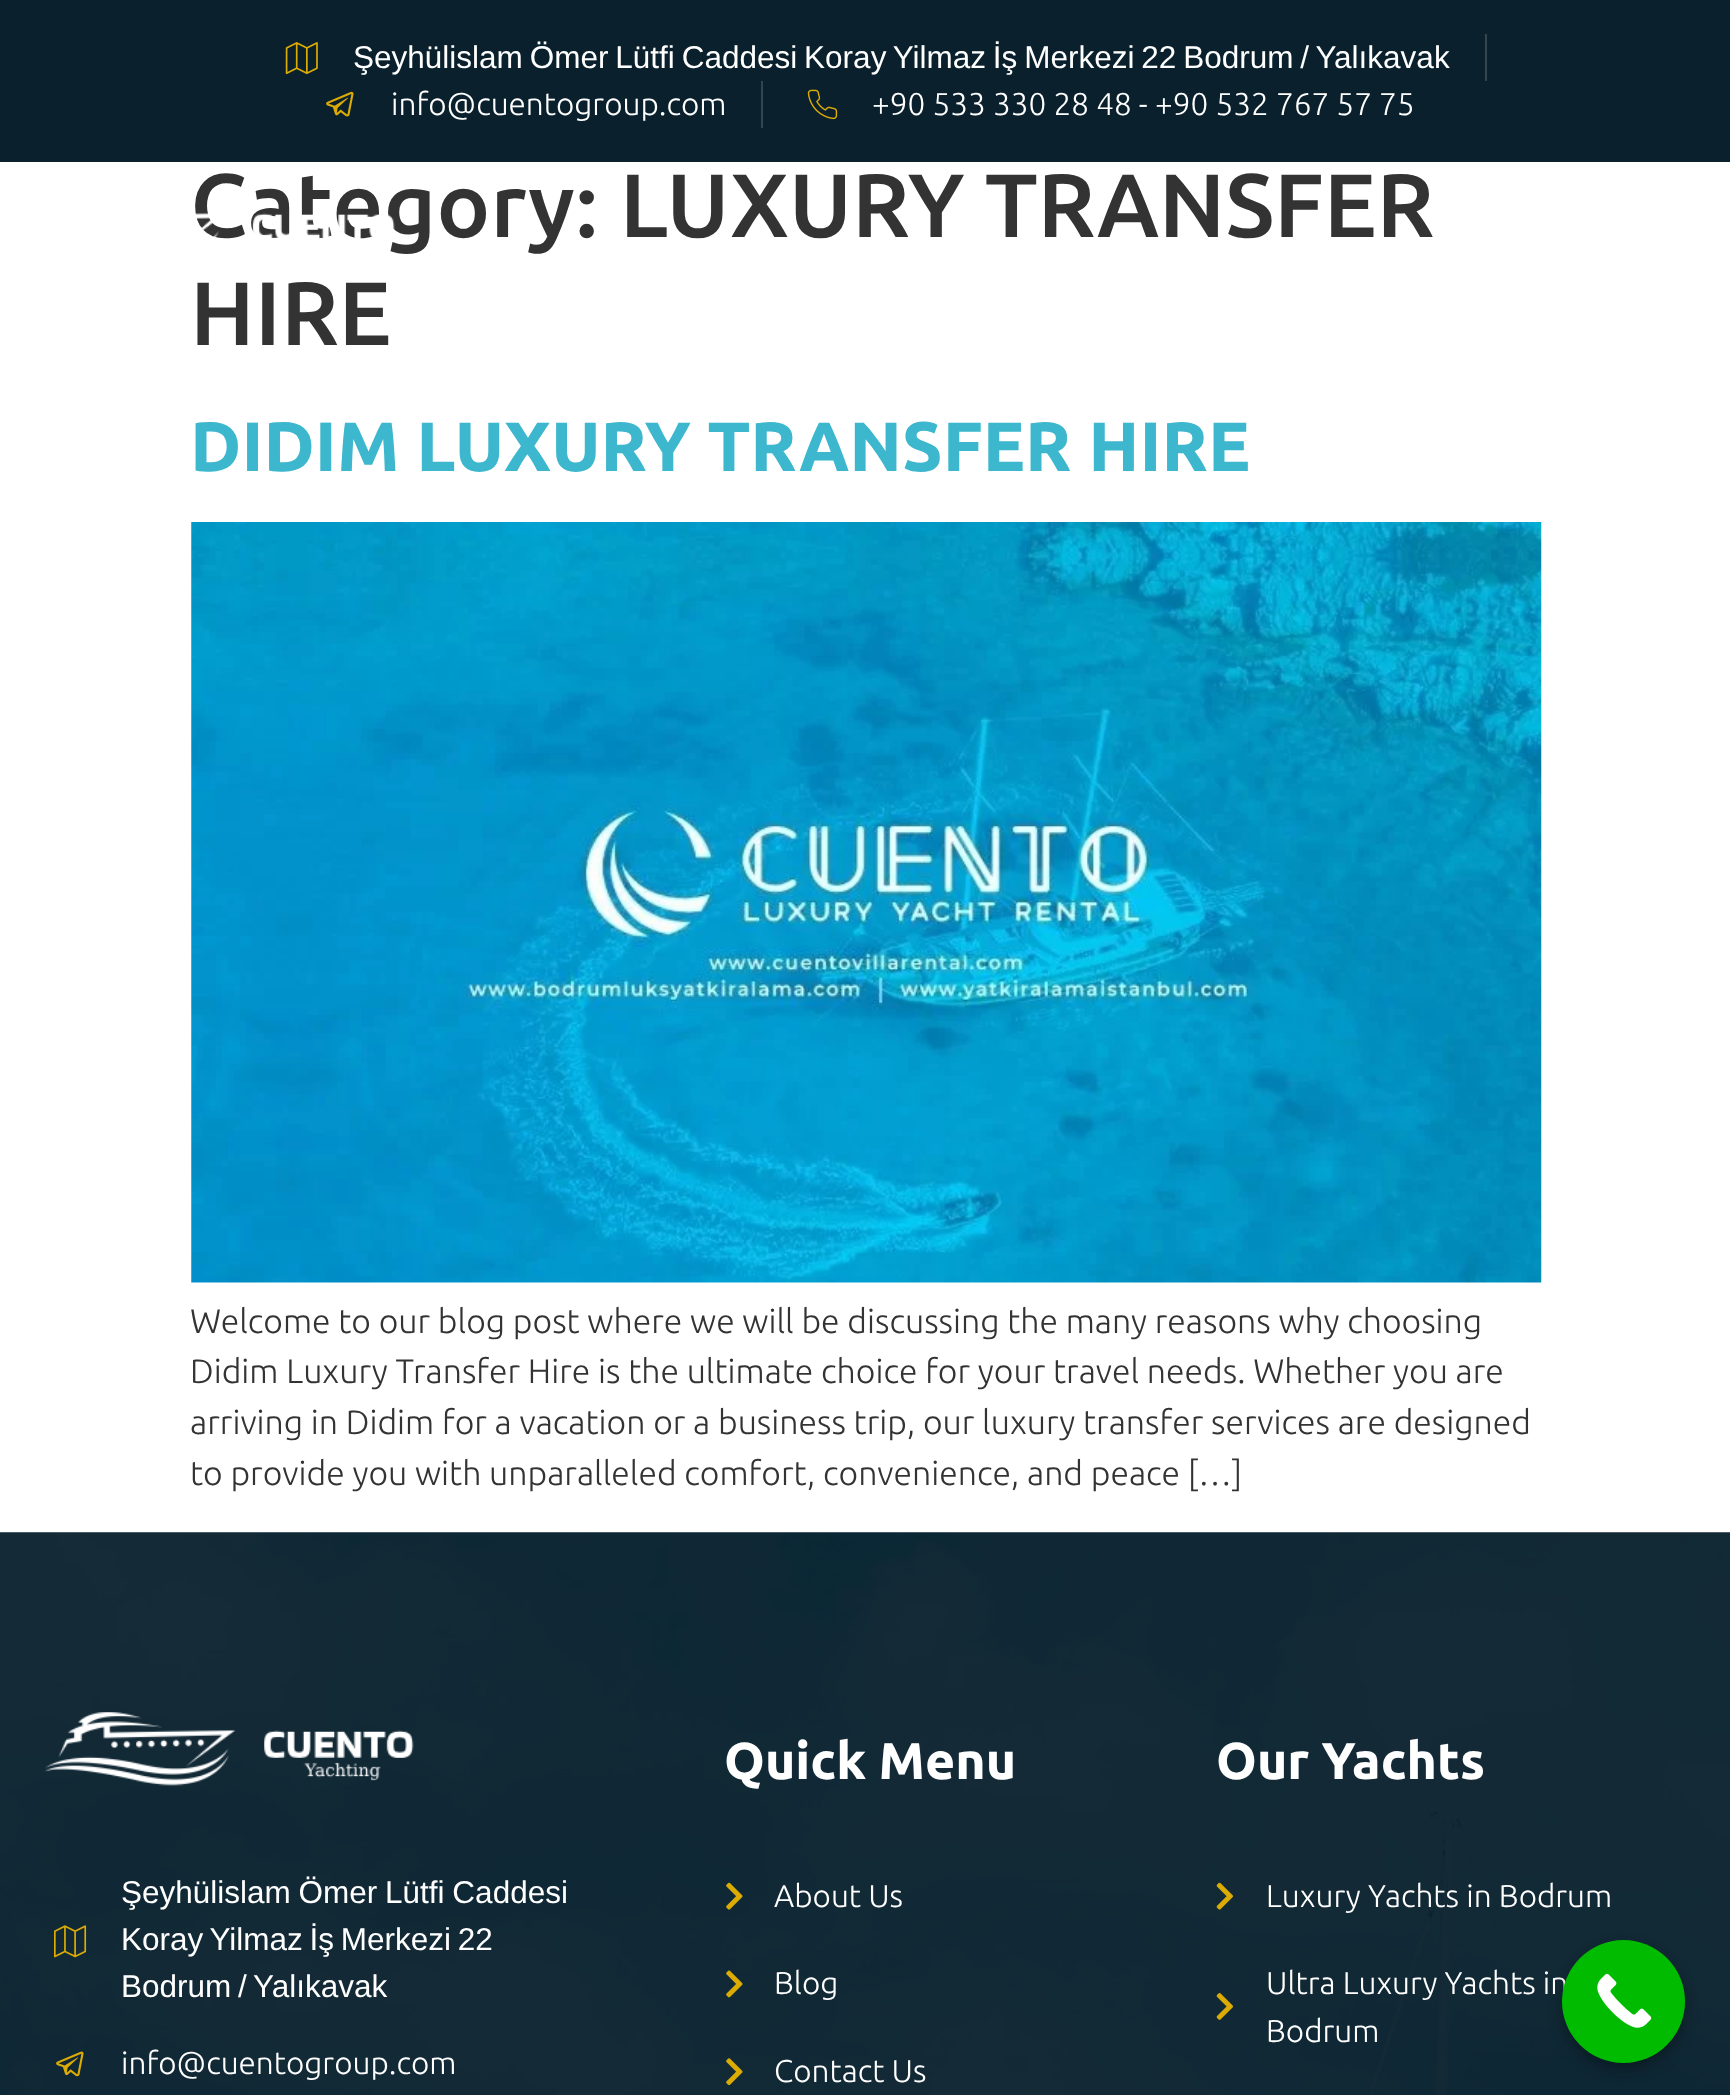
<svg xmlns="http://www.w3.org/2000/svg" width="1730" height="2095">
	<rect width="100%" height="100%" fill="#FFFFFF" />
	<rect x="0" y="0" width="1730" height="162" fill="#0A212D" />
	<image x="285" y="42" width="33" height="33" href="assets/img1.png" />
	<text x="353" y="68" word-spacing="-1.9" font-family="Liberation Sans" font-size="31.5" fill="#FFFFFF">Şeyhülislam Ömer Lütfi Caddesi Koray Yilmaz İş Merkezi 22 Bodrum / Yalıkavak</text>
	<rect x="1485" y="34" width="2" height="47" fill="#35454D" />
	<image x="326" y="91" width="28" height="26" href="assets/img2.png" />
	<text x="391" y="115" font-family="Ubuntu" font-size="31.5" font-weight="300" fill="#FFFFFF">info@cuentogroup.com</text>
	<rect x="761" y="81" width="2" height="47" fill="#35454D" />
	<image x="807" y="89" width="31" height="31" href="assets/img3.png" />
	<text x="872" y="115" font-family="Ubuntu" font-size="31.5" font-weight="300" fill="#FFFFFF">+90 533 330 28 48 - +90 532 767 57 75</text>
	<rect x="197" y="315" width="186" height="2" fill="#FFFFFF" fill-opacity="0.13" />
	<text x="190" y="237" font-family="Ubuntu" font-size="90" font-weight="500" fill="#333333">Category: LUXURY TRANSFER</text>
	<image x="195" y="213" width="200" height="26" href="assets/img4.png" />
	<text x="190" y="345" font-family="Ubuntu" font-size="90" font-weight="500" fill="#333333">HIRE</text>
	<text x="190" y="471" font-family="Ubuntu" font-size="69.75" font-weight="700" fill="#3DB7CD">DIDIM LUXURY TRANSFER HIRE</text>
	<image x="191" y="522" width="1351" height="761" href="assets/img5.png" />
	<g font-family="Ubuntu" font-size="33.75" font-weight="300" fill="#333333">
		<text x="190" y="1333">Welcome to our blog post where we will be discussing the many reasons why choosing</text>
		<text x="190" y="1383">Didim Luxury Transfer Hire is the ultimate choice for your travel needs. Whether you are</text>
		<text x="190" y="1434">arriving in Didim for a vacation or a business trip, our luxury transfer services are designed</text>
		<text x="190" y="1485">to provide you with unparalleled comfort, convenience, and peace […]</text>
	</g>
	<image x="0" y="1532" width="1730" height="563" href="assets/img6.png" />
	<image x="45" y="1712" width="369" height="74" href="assets/img7.png" />
	<image x="54" y="1925" width="33" height="33" href="assets/img8.png" />
	<g font-family="Liberation Sans" font-size="31.5" fill="#FFFFFF">
		<text x="121" y="1903" word-spacing="-1">Şeyhülislam Ömer Lütfi Caddesi</text>
		<text x="121" y="1950" word-spacing="-2">Koray Yilmaz İş Merkezi 22</text>
		<text x="121" y="1997" word-spacing="-2">Bodrum / Yalıkavak</text>
	</g>
	<image x="56" y="2051" width="28" height="26" href="assets/img9.png" />
	<text x="121" y="2074" font-family="Ubuntu" font-size="31.5" font-weight="300" fill="#FFFFFF">info@cuentogroup.com</text>
	<text x="724" y="1779" font-family="Ubuntu" font-size="51.75" font-weight="700" fill="#FFFFFF">Quick Menu</text>
	<image x="726" y="1882" width="17" height="28" href="assets/img10.png" />
	<text x="774" y="1907" font-family="Ubuntu" font-size="31.5" font-weight="300" fill="#FFFFFF">About Us</text>
	<image x="726" y="1970" width="17" height="28" href="assets/img11.png" />
	<text x="774" y="1994" font-family="Ubuntu" font-size="31.5" font-weight="300" fill="#FFFFFF">Blog</text>
	<image x="726" y="2058" width="17" height="28" href="assets/img12.png" />
	<text x="774" y="2082" font-family="Ubuntu" font-size="31.5" font-weight="300" fill="#FFFFFF">Contact Us</text>
	<text x="1216" y="1779" font-family="Ubuntu" font-size="51.75" font-weight="700" fill="#FFFFFF">Our Yachts</text>
	<image x="1216" y="1882" width="17" height="28" href="assets/img13.png" />
	<text x="1266" y="1907" font-family="Ubuntu" font-size="31.5" font-weight="300" fill="#FFFFFF">Luxury Yachts in Bodrum</text>
	<image x="1216" y="1993" width="17" height="27" href="assets/img14.png" />
	<g font-family="Ubuntu" font-size="31.5" font-weight="300" fill="#FFFFFF">
		<text x="1266" y="1994">Ultra Luxury Yachts in</text>
		<text x="1266" y="2042">Bodrum</text>
	</g>
	<rect x="1562" y="1946" width="123" height="124" rx="61.5" fill="#000000" fill-opacity="0.3" filter="blur(7px)" />
	<circle cx="1623.5" cy="2001.5" r="61.5" fill="#00BB00" />
	<image x="1597" y="1973" width="55" height="55" href="assets/img15.png" />
</svg>
